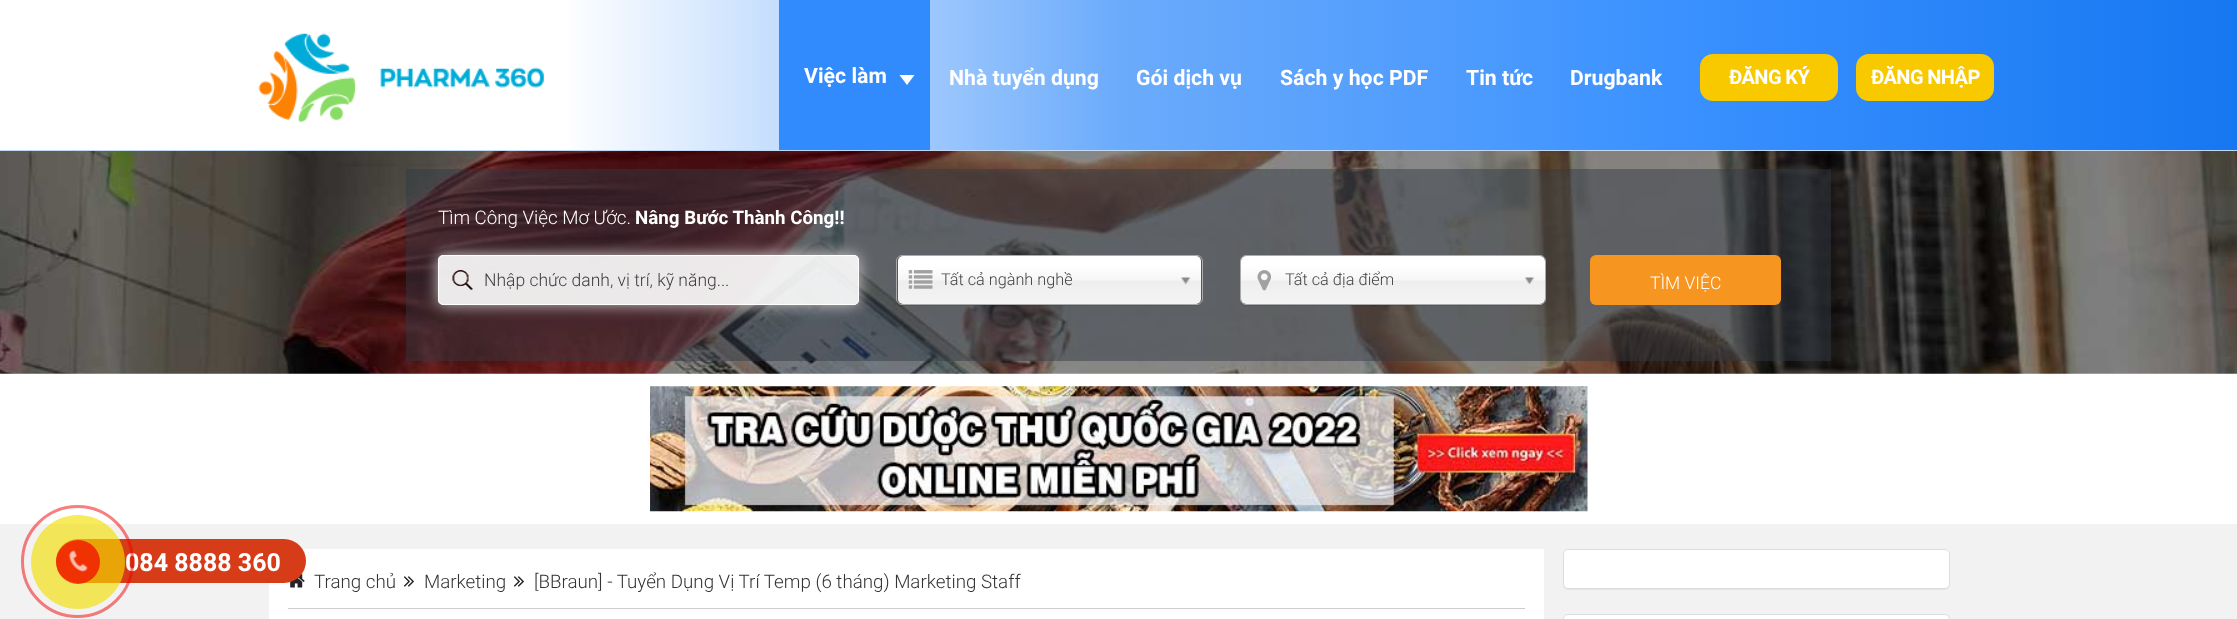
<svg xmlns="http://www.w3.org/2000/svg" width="2237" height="619">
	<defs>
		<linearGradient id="g1" gradientUnits="userSpaceOnUse" x1="0" y1="75" x2="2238" y2="75"><stop offset="0" stop-color="#FFFFFF" /><stop offset="0.25" stop-color="#FFFFFF" /><stop offset="0.5" stop-color="#6BABFB" /><stop offset="0.75" stop-color="#3A91FF" /><stop offset="1" stop-color="#1677F1" /></linearGradient>
		<clipPath id="clip1"><path d="M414 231H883V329H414ZM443 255H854C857 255 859 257 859 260V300C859 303 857 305 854 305H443C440 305 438 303 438 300V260C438 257 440 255 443 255Z" clip-rule="evenodd" /></clipPath>
		<linearGradient id="g2" gradientUnits="userSpaceOnUse" x1="1049" y1="256" x2="1049" y2="304"><stop offset="0.2" stop-color="#FFFFFF" /><stop offset="0.5" stop-color="#F6F6F6" /><stop offset="0.52" stop-color="#EEEEEE" /><stop offset="1" stop-color="#F4F4F4" /></linearGradient>
		<linearGradient id="g3" gradientUnits="userSpaceOnUse" x1="1393" y1="256" x2="1393" y2="304"><stop offset="0.2" stop-color="#FFFFFF" /><stop offset="0.5" stop-color="#F6F6F6" /><stop offset="0.52" stop-color="#EEEEEE" /><stop offset="1" stop-color="#F4F4F4" /></linearGradient>
	</defs>
	<rect width="100%" height="100%" fill="#FFFFFF" />
	<rect x="569" y="0" width="1668" height="150" fill="url(#g1)" />
	<rect x="0" y="150" width="2237" height="1" fill="#C3D8F3" />
	<image x="258" y="33" width="286" height="90" href="assets/img1.png" />
	<rect x="779" y="0" width="151" height="150" fill="#328BFC" />
	<text x="804" y="83" font-family="Roboto" font-size="21.25" font-weight="700" fill="#FFFFFF">Việc làm</text>
	<path d="M899.5 75H914.5L907 85Z" fill="#FFFFFF" />
	<g font-family="Roboto" font-size="21.25" font-weight="700" fill="#FFFFFF">
		<text x="949" y="85">Nhà tuyển dụng</text>
		<text x="1136" y="85">Gói dịch vụ</text>
		<text x="1280" y="85">Sách y học PDF</text>
		<text x="1466" y="85">Tin tức</text>
		<text x="1570" y="85">Drugbank</text>
	</g>
	<rect x="1700" y="54" width="138" height="47" rx="13" fill="#F9C900" />
	<text x="1729" y="84" font-family="Roboto" font-size="20" font-weight="700" letter-spacing="-0.6" fill="#FFFFFF">ĐĂNG KÝ</text>
	<rect x="1856" y="54" width="138" height="47" rx="13" fill="#F9C900" />
	<text x="1871" y="84" font-family="Roboto" font-size="20" font-weight="700" letter-spacing="-0.6" fill="#FFFFFF">ĐĂNG NHẬP</text>
	<image x="0" y="151" width="2237" height="223" href="assets/img2.png" />
	<rect x="406" y="169" width="1425" height="192" fill="#313944" fill-opacity="0.47" />
	<text x="438" y="224" font-family="Roboto" font-size="18.75" font-weight="300" fill="#FFFFFF">Tìm Công Việc Mơ Ước.</text>
	<text x="635" y="224" font-family="Roboto" font-size="18.75" font-weight="700" fill="#FFFFFF">Nâng Bước Thành Công!!</text>
	<g clip-path="url(#clip1)">
		<rect x="438" y="255" width="421" height="50" rx="5" fill="#CBC8C8" filter="blur(7.5px)" />
	</g>
	<rect x="438" y="255" width="421" height="50" rx="5" fill="#FFFFFF" fill-opacity="0.9" />
	<image x="452" y="270" width="21" height="20" href="assets/img3.png" />
	<rect x="438.5" y="255.5" width="420" height="49" rx="4.5" fill="none" stroke="#FFFFFF" />
	<text x="484" y="286" font-family="Roboto" font-size="17.5" font-weight="300" fill="#3E3E3E">Nhập chức danh, vị trí, kỹ năng...</text>
	<rect x="896" y="256" width="307" height="50" rx="6" fill="#000000" fill-opacity="0.1" filter="blur(0.5px)" />
	<rect x="898" y="256" width="303" height="48" rx="5" fill="url(#g2)" />
	<rect x="896.5" y="255.5" width="306" height="49" rx="5.5" fill="none" stroke="#AAAAAA" />
	<image x="908" y="270" width="25" height="19" href="assets/img4.png" />
	<text x="941" y="285" font-family="Roboto" font-size="16.25" font-weight="300" fill="#444444">Tất cả ngành nghề</text>
	<image x="1181" y="277" width="10" height="8" href="assets/img5.png" />
	<rect x="1240" y="256" width="306" height="50" rx="6" fill="#000000" fill-opacity="0.1" filter="blur(0.5px)" />
	<rect x="1241" y="256" width="304" height="48" rx="5" fill="url(#g3)" />
	<rect x="1240.5" y="255.5" width="305" height="49" rx="5.5" fill="none" stroke="#AAAAAA" />
	<image x="1257" y="270" width="14" height="21" href="assets/img6.png" />
	<text x="1285" y="285" font-family="Roboto" font-size="16.25" font-weight="300" fill="#444444">Tất cả địa điểm</text>
	<image x="1525" y="277" width="9" height="8" href="assets/img7.png" />
	<rect x="1590" y="255" width="191" height="50" rx="6" fill="#F79521" />
	<text x="1650" y="289" font-family="Roboto" font-size="17.5" font-weight="300" fill="#FFFFFF">TÌM VIỆC</text>
	<image x="650" y="386" width="938" height="126" href="assets/img8.png" />
	<rect x="0" y="524" width="2237" height="95" fill="#F2F2F3" />
	<rect x="269" y="549" width="1275" height="70" fill="#FFFFFF" />
	<image x="290" y="574" width="15" height="14" href="assets/img10.png" />
	<rect x="56" y="539" width="250" height="44" rx="22" fill="#D73C18" />
	<text x="125" y="571" font-family="Roboto" font-size="25" font-weight="700" fill="#FFFFFF">084 8888 360</text>
	<circle cx="77.5" cy="561.5" r="55" fill="none" stroke="#F20000" stroke-opacity="0.5" stroke-width="3" />
	<circle cx="78" cy="562" r="47" fill="#F2DF00" fill-opacity="0.64" />
	<circle cx="78" cy="562" r="22" fill="#F20000" fill-opacity="0.7" />
	<image x="68" y="550" width="20" height="22" href="assets/img9.png" />
	<rect x="288" y="608" width="1237" height="1" fill="#CCCCCC" />
	<text x="314" y="588" font-family="Roboto" font-size="18.75" font-weight="300" fill="#333333">Trang chủ</text>
	<image x="403" y="576" width="11" height="11" href="assets/img11.png" />
	<text x="424" y="588" font-family="Roboto" font-size="18.75" font-weight="300" fill="#333333">Marketing</text>
	<image x="513" y="576" width="11" height="11" href="assets/img11.png" />
	<text x="534" y="588" font-family="Roboto" font-size="18.75" font-weight="300" fill="#333333">[BBraun] - Tuyển Dụng Vị Trí Temp (6 tháng) Marketing Staff</text>
	<rect x="1563" y="550" width="387" height="40" rx="5" fill="#000000" fill-opacity="0.05" filter="blur(0.5px)" />
	<rect x="1563.5" y="549.5" width="386" height="39" rx="4.5" fill="#FFFFFF" stroke="#DDDDDD" />
	<rect x="1563.5" y="614.5" width="386" height="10" rx="4.5" fill="#FFFFFF" stroke="#DDDDDD" />
</svg>
